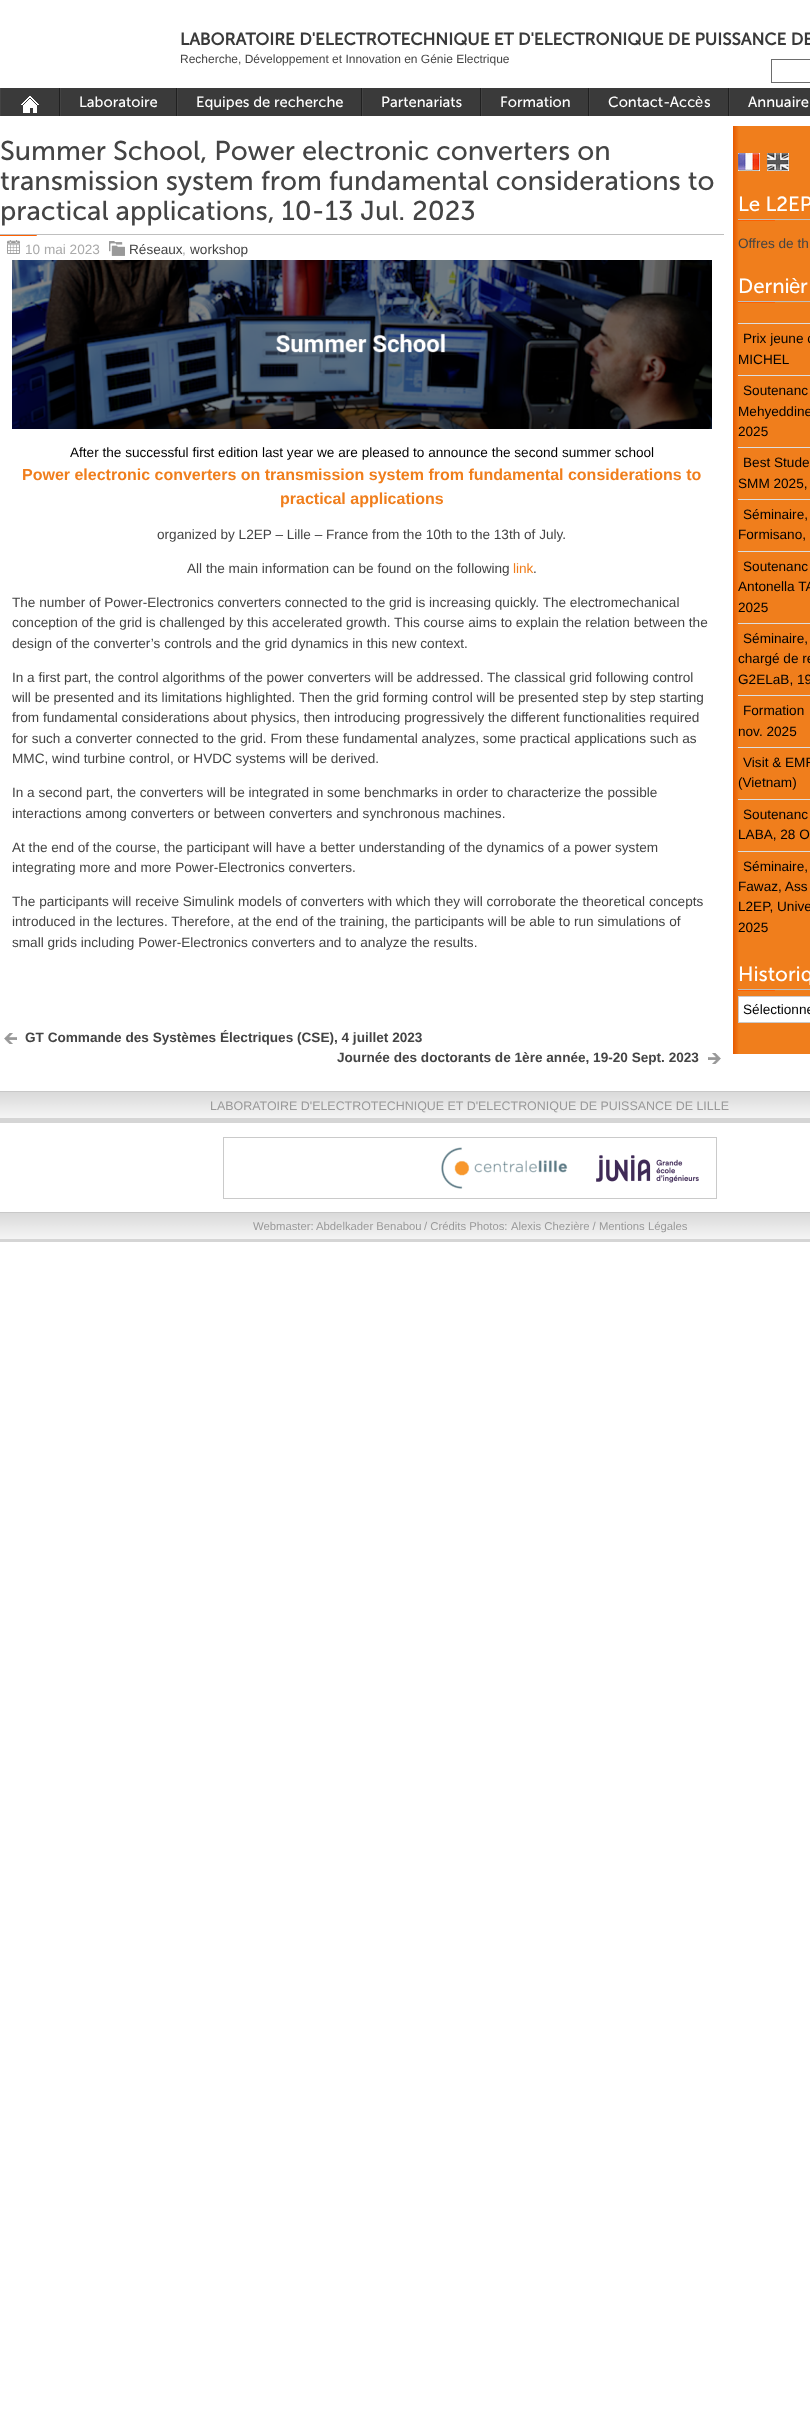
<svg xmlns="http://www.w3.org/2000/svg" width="810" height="2427">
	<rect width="100%" height="100%" fill="#FFFFFF" />
	<text x="180" y="45" font-family="Museo Sans" font-size="17" font-weight="700" fill="#3A3A3A">LABORATOIRE D'ELECTROTECHNIQUE ET D'ELECTRONIQUE DE PUISSANCE DE</text>
	<text x="180" y="63" font-family="Liberation Sans" font-size="12" fill="#444444">Recherche, Développement et Innovation en Génie Electrique</text>
	<rect x="771.5" y="59.5" width="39" height="23" fill="none" stroke="#6D6D6D" />
	<rect x="1" y="88" width="809" height="28" fill="#3A3A3A" />
	<rect x="59" y="88" width="1" height="28" fill="#202020" />
	<rect x="0" y="88" width="1" height="28" fill="#434343" />
	<image x="21" y="96" width="18" height="17" href="assets/img1.png" />
	<rect x="176" y="88" width="1" height="28" fill="#202020" />
	<rect x="60" y="88" width="1" height="28" fill="#434343" />
	<text x="79" y="107" font-family="Museo Sans" font-size="14.75" fill="#FFFFFF">Laboratoire</text>
	<rect x="361" y="88" width="1" height="28" fill="#202020" />
	<rect x="177" y="88" width="1" height="28" fill="#434343" />
	<text x="196" y="107" font-family="Museo Sans" font-size="14.75" fill="#FFFFFF">Equipes de recherche</text>
	<rect x="480" y="88" width="1" height="28" fill="#202020" />
	<rect x="362" y="88" width="1" height="28" fill="#434343" />
	<text x="381" y="107" font-family="Museo Sans" font-size="14.75" fill="#FFFFFF">Partenariats</text>
	<rect x="588" y="88" width="1" height="28" fill="#202020" />
	<rect x="481" y="88" width="1" height="28" fill="#434343" />
	<text x="500" y="107" font-family="Museo Sans" font-size="14.75" fill="#FFFFFF">Formation</text>
	<rect x="728" y="88" width="1" height="28" fill="#202020" />
	<rect x="589" y="88" width="1" height="28" fill="#434343" />
	<text x="608" y="107" font-family="Museo Sans" font-size="14.75" fill="#FFFFFF">Contact-Acc</text>
	<text x="695" y="107" font-family="Liberation Sans" font-size="14.75" fill="#FFFFFF">è</text>
	<text x="704" y="107" font-family="Museo Sans" font-size="14.75" fill="#FFFFFF">s</text>
	<rect x="729" y="88" width="1" height="28" fill="#434343" />
	<text x="748" y="107" font-family="Museo Sans" font-size="14.75" fill="#FFFFFF">Annuaire</text>
	<image x="0" y="234" width="724" height="2" href="assets/img2.png" />
	<g font-family="Museo Sans" font-size="27.2" fill="#444444">
		<text x="0" y="160">Summer School, Power electronic converters on</text>
		<text x="0" y="190">transmission system from fundamental considerations to</text>
		<text x="0" y="220">practical applications, 10-13 Jul. 2023</text>
	</g>
	<image x="7" y="240" width="13" height="14" href="assets/img3.png" />
	<text x="25" y="254" font-family="Liberation Sans" font-size="13.6" fill="#AAAAAA">10 mai 2023</text>
	<image x="109" y="241" width="16" height="15" href="assets/img4.png" />
	<text x="129" y="254" font-family="Liberation Sans" font-size="13.6" fill="#444444">Réseaux</text>
	<text x="182" y="254" font-family="Liberation Sans" font-size="13.6" fill="#AAAAAA">,</text>
	<text x="190" y="254" font-family="Liberation Sans" font-size="13.6" fill="#444444">workshop</text>
	<image x="12" y="260" width="700" height="169" href="assets/img5.png" />
	<text x="70" y="457" font-family="Liberation Sans" font-size="13.6" fill="#000000">After the successful first edition last year we are pleased to announce the second summer school</text>
	<g font-family="Liberation Sans" font-size="16" font-weight="700" fill="#F07E1C">
		<text x="22" y="480">Power electronic converters on transmission system from fundamental considerations to</text>
		<text x="280" y="504">practical applications</text>
	</g>
	<g font-family="Liberation Sans" font-size="13.6" fill="#444444">
		<text x="157" y="539">organized by L2EP – Lille – France from the 10th to the 13th of July.</text>
		<text x="187" y="573">All the main information can be found on the following</text>
	</g>
	<text x="513" y="573" font-family="Liberation Sans" font-size="13.6" fill="#F07E1C">link</text>
	<g font-family="Liberation Sans" font-size="13.6" fill="#444444">
		<text x="533" y="573">.</text>
		<text x="12" y="607">The number of Power-Electronics converters connected to the grid is increasing quickly. The electromechanical</text>
		<text x="12" y="627">conception of the grid is challenged by this accelerated growth. This course aims to explain the relation between the</text>
		<text x="12" y="648">design of the converter’s controls and the grid dynamics in this new context.</text>
		<text x="12" y="682">In a first part, the control algorithms of the power converters will be addressed. The classical grid following control</text>
		<text x="12" y="702">will be presented and its limitations highlighted. Then the grid forming control will be presented step by step starting</text>
		<text x="12" y="722">from fundamental considerations about physics, then introducing progressively the different functionalities required</text>
		<text x="12" y="743">for such a converter connected to the grid. From these fundamental analyzes, some practical applications such as</text>
		<text x="12" y="763">MMC, wind turbine control, or HVDC systems will be derived.</text>
		<text x="12" y="797">In a second part, the converters will be integrated in some benchmarks in order to characterize the possible</text>
		<text x="12" y="818">interactions among converters or between converters and synchronous machines.</text>
		<text x="12" y="852">At the end of the course, the participant will have a better understanding of the dynamics of a power system</text>
		<text x="12" y="872">integrating more and more Power-Electronics converters.</text>
		<text x="12" y="906">The participants will receive Simulink models of converters with which they will corroborate the theoretical concepts</text>
		<text x="12" y="926">introduced in the lectures. Therefore, at the end of the training, the participants will be able to run simulations of</text>
		<text x="12" y="947">small grids including Power-Electronics converters and to analyze the results.</text>
	</g>
	<image x="4" y="1033" width="13" height="11" href="assets/img6.png" />
	<text x="25" y="1042" font-family="Liberation Sans" font-size="13.6" font-weight="700" fill="#444444">GT Commande des Systèmes Électriques (CSE), 4 juillet 2023</text>
	<image x="708" y="1053" width="13" height="11" href="assets/img7.png" />
	<text x="337" y="1062" font-family="Liberation Sans" font-size="13.6" font-weight="700" fill="#444444">Journée des doctorants de 1ère année, 19-20 Sept. 2023</text>
	<image x="733" y="126" width="77" height="928" href="assets/img8.png" />
	<image x="738" y="153" width="22" height="18" href="assets/img9.png" />
	<image x="767" y="153" width="22" height="18" href="assets/img10.png" />
	<image x="738" y="219" width="72" height="2" href="assets/img11.png" />
	<text x="738" y="211" font-family="Museo Sans" font-size="20.5" fill="#FFFFFF">Le L2EP</text>
	<text x="738" y="248" font-family="Liberation Sans" font-size="13.6" fill="#444444">Offres de th</text>
	<image x="738" y="301" width="72" height="2" href="assets/img11.png" />
	<text x="738" y="293" font-family="Museo Sans" font-size="20.5" fill="#FFFFFF">Derni</text>
	<text x="789" y="293" font-family="Liberation Sans" font-size="20.5" fill="#FFFFFF">è</text>
	<text x="800" y="293" font-family="Museo Sans" font-size="20.5" fill="#FFFFFF">r</text>
	<rect x="738" y="323" width="72" height="1" fill="#DDDDDD" />
	<g font-family="Liberation Sans" font-size="13.6" fill="#000000">
		<text x="743" y="343">Prix jeune c</text>
		<text x="738" y="364">MICHEL</text>
	</g>
	<rect x="738" y="375" width="72" height="1" fill="#DDDDDD" />
	<g font-family="Liberation Sans" font-size="13.6" fill="#000000">
		<text x="743" y="395">Soutenanc</text>
		<text x="738" y="416">Mehyeddine</text>
		<text x="738" y="436">2025</text>
	</g>
	<rect x="738" y="447" width="72" height="1" fill="#DDDDDD" />
	<g font-family="Liberation Sans" font-size="13.6" fill="#000000">
		<text x="743" y="467">Best Stude</text>
		<text x="738" y="488">SMM 2025,</text>
	</g>
	<rect x="738" y="499" width="72" height="1" fill="#DDDDDD" />
	<g font-family="Liberation Sans" font-size="13.6" fill="#000000">
		<text x="743" y="519">Séminaire,</text>
		<text x="738" y="539">Formisano,</text>
	</g>
	<rect x="738" y="551" width="72" height="1" fill="#DDDDDD" />
	<g font-family="Liberation Sans" font-size="13.6" fill="#000000">
		<text x="743" y="571">Soutenanc</text>
		<text x="738" y="591">Antonella TA</text>
		<text x="738" y="612">2025</text>
	</g>
	<rect x="738" y="623" width="72" height="1" fill="#DDDDDD" />
	<g font-family="Liberation Sans" font-size="13.6" fill="#000000">
		<text x="743" y="643">Séminaire,</text>
		<text x="738" y="663">chargé de re</text>
		<text x="738" y="684">G2ELaB, 19</text>
	</g>
	<rect x="738" y="695" width="72" height="1" fill="#DDDDDD" />
	<g font-family="Liberation Sans" font-size="13.6" fill="#000000">
		<text x="743" y="715">Formation</text>
		<text x="738" y="736">nov. 2025</text>
	</g>
	<rect x="738" y="747" width="72" height="1" fill="#DDDDDD" />
	<g font-family="Liberation Sans" font-size="13.6" fill="#000000">
		<text x="743" y="767">Visit &amp; EMR</text>
		<text x="738" y="787">(Vietnam)</text>
	</g>
	<rect x="738" y="799" width="72" height="1" fill="#DDDDDD" />
	<g font-family="Liberation Sans" font-size="13.6" fill="#000000">
		<text x="743" y="819">Soutenanc</text>
		<text x="738" y="839">LABA, 28 O</text>
	</g>
	<rect x="738" y="851" width="72" height="1" fill="#DDDDDD" />
	<g font-family="Liberation Sans" font-size="13.6" fill="#000000">
		<text x="743" y="871">Séminaire,</text>
		<text x="738" y="891">Fawaz, Ass</text>
		<text x="738" y="911">L2EP, Unive</text>
		<text x="738" y="932">2025</text>
	</g>
	<image x="738" y="989" width="72" height="2" href="assets/img11.png" />
	<text x="738" y="981" font-family="Museo Sans" font-size="20.5" fill="#FFFFFF">Historiq</text>
	<rect x="738.5" y="996.5" width="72" height="26" fill="#FFFFFF" stroke="#CACACA" />
	<text x="743" y="1014" font-family="Liberation Sans" font-size="13.6" fill="#000000">Sélectionne</text>
	<rect x="0" y="1118" width="810" height="5" fill="#D5D5D5" />
	<image x="0" y="1091" width="810" height="27" href="assets/img12.png" />
	<text x="210" y="1110" font-family="Liberation Sans" font-size="12.45" fill="#999999">LABORATOIRE D'ELECTROTECHNIQUE ET D'ELECTRONIQUE DE PUISSANCE DE LILLE</text>
	<rect x="223" y="1137" width="494" height="1" fill="#CACACA" />
	<rect x="716" y="1137" width="1" height="62" fill="#CACACA" />
	<rect x="223" y="1198" width="494" height="1" fill="#CACACA" />
	<rect x="223" y="1137" width="1" height="62" fill="#CACACA" />
	<image x="441" y="1147" width="127" height="42" href="assets/img13.png" />
	<image x="596" y="1155" width="103" height="28" href="assets/img14.png" />
	<rect x="0" y="1239" width="810" height="3" fill="#D5D5D5" />
	<image x="0" y="1212" width="810" height="27" href="assets/img12.png" />
	<g font-family="Liberation Sans" font-size="11.3" fill="#999999">
		<text x="253" y="1230">Webmaster:</text>
		<text x="316" y="1230">Abdelkader Benabou</text>
		<text x="424" y="1230">/ Crédits Photos:</text>
		<text x="511" y="1230">Alexis Chezière / Mentions Légales</text>
	</g>
</svg>
